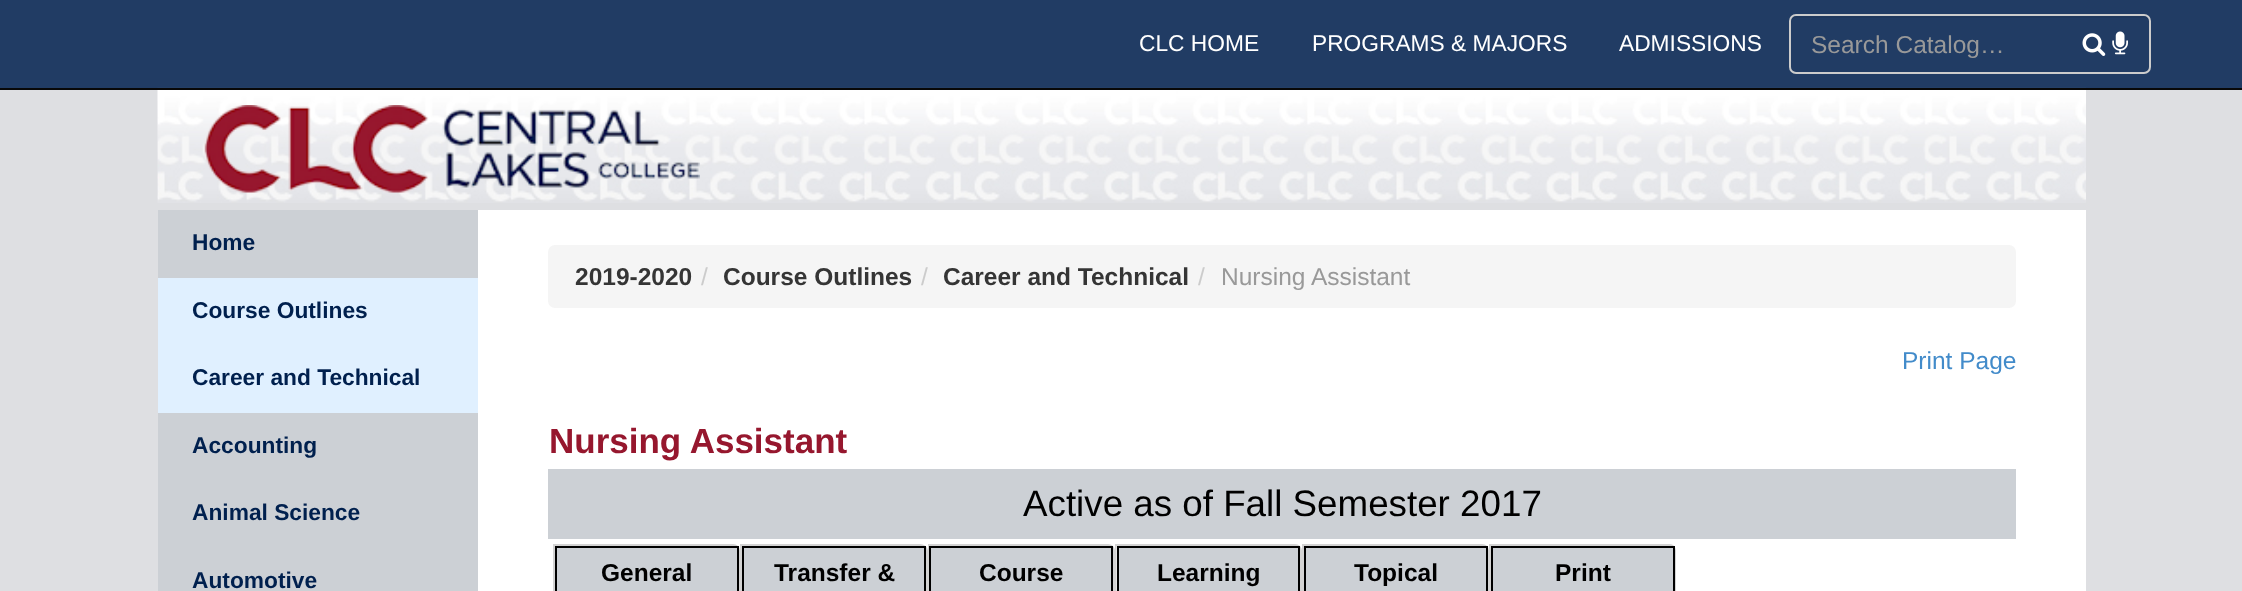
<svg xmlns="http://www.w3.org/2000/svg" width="2242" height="591">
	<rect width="100%" height="100%" fill="#DEDFE2" />
	<image x="157" y="87" width="1929" height="116" href="assets/img3.png" />
	<rect x="0" y="0" width="2242" height="88" fill="#00204E" fill-opacity="0.85" />
	<rect x="0" y="88" width="2242" height="2" fill="#080808" />
	<g font-family="Liberation Sans" font-size="22.75" fill="#FFFFFF">
		<text x="1139" y="51">CLC HOME</text>
		<text x="1312" y="51">PROGRAMS &amp; MAJORS</text>
		<text x="1619" y="51">ADMISSIONS</text>
	</g>
	<path d="M1796 18H2144C2147 18 2149 20 2149 23C2149 20 2148 16 2144 16H1795C1791 16 1790 20 1790 23C1790 20 1793 18 1796 18Z" fill="#1F385D" />
	<rect x="1790" y="15" width="360" height="58" rx="6" fill="none" stroke="#CCCCCC" stroke-width="2" />
	<text x="1811" y="53" font-family="Liberation Sans" font-size="24.5" fill="#999999">Search Catalog…</text>
	<image x="2082" y="33" width="24" height="23" href="assets/img1.png" />
	<image x="2112" y="31" width="16" height="24" href="assets/img2.png" />
	<rect x="158" y="210" width="320" height="381" fill="#CCD0D5" />
	<image x="204" y="105" width="496" height="88" href="assets/img4.png" />
	<text x="192" y="250" font-family="Liberation Sans" font-size="22.75" font-weight="700" fill="#00204E">Home</text>
	<rect x="158" y="278" width="320" height="135" fill="#E0F0FF" />
	<g font-family="Liberation Sans" font-size="22.75" font-weight="700" fill="#00204E">
		<text x="192" y="318">Course Outlines</text>
		<text x="192" y="385">Career and Technical</text>
		<text x="192" y="453">Accounting</text>
		<text x="192" y="520">Animal Science</text>
		<text x="192" y="588">Automotive</text>
	</g>
	<rect x="478" y="210" width="1608" height="381" fill="#FFFFFF" />
	<rect x="548" y="245" width="1468" height="63" rx="7" fill="#F5F5F5" />
	<text x="575" y="285" font-family="Liberation Sans" font-size="24.5" font-weight="700" fill="#353535">2019-2020</text>
	<text x="701" y="285" font-family="Liberation Sans" font-size="24.5" fill="#CCCCCC">/</text>
	<text x="723" y="285" font-family="Liberation Sans" font-size="24.5" font-weight="700" fill="#353535">Course Outlines</text>
	<text x="921" y="285" font-family="Liberation Sans" font-size="24.5" fill="#CCCCCC">/</text>
	<text x="943" y="285" font-family="Liberation Sans" font-size="24.5" font-weight="700" fill="#353535">Career and Technical</text>
	<text x="1198" y="285" font-family="Liberation Sans" font-size="24.5" fill="#CCCCCC">/</text>
	<text x="1221" y="285" font-family="Liberation Sans" font-size="24.5" fill="#999999">Nursing Assistant</text>
	<text x="1902" y="369" font-family="Liberation Sans" font-size="24.5" fill="#428BCA">Print Page</text>
	<text x="549" y="453" font-family="Liberation Sans" font-size="35" font-weight="700" fill="#96172E">Nursing Assistant</text>
	<rect x="548" y="469" width="1468" height="70" fill="#CCD0D5" />
	<text x="1023" y="516" font-family="Liberation Sans" font-size="36.75" fill="#000000">Active as of Fall Semester 2017</text>
	<path d="M553 544H733C737 544 740 547 740 551V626C740 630 737 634 733 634H553ZM555 546H733C736 546 738 548 738 551V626C738 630 736 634 733 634H555Z" fill="#D3D3D3" fill-rule="evenodd" />
	<rect x="556" y="547" width="182" height="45" fill="#CCD0D5" stroke="#000000" stroke-width="2" />
	<text x="601" y="581" font-family="Liberation Sans" font-size="24.5" font-weight="700" fill="#000000">General</text>
	<path d="M740 544H920C924 544 928 547 928 551V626C928 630 924 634 920 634H740ZM742 546H920C923 546 926 548 926 551V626C926 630 923 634 920 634H742Z" fill="#D3D3D3" fill-rule="evenodd" />
	<rect x="743" y="547" width="182" height="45" fill="#CCD0D5" stroke="#000000" stroke-width="2" />
	<text x="774" y="581" font-family="Liberation Sans" font-size="24.5" font-weight="700" fill="#000000">Transfer &amp;</text>
	<path d="M928 544H1108C1112 544 1115 547 1115 551V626C1115 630 1112 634 1108 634H928ZM929 546H1108C1111 546 1113 548 1113 551V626C1113 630 1111 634 1108 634H929Z" fill="#D3D3D3" fill-rule="evenodd" />
	<rect x="930" y="547" width="182" height="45" fill="#CCD0D5" stroke="#000000" stroke-width="2" />
	<text x="979" y="581" font-family="Liberation Sans" font-size="24.5" font-weight="700" fill="#000000">Course</text>
	<path d="M1116 546H1295C1298 546 1300 548 1300 551V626C1300 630 1298 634 1295 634H1116Z" fill="#E6E6E6" />
	<path d="M1115 544H1295C1299 544 1302 547 1302 551V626C1302 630 1299 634 1295 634H1115ZM1116 546H1295C1298 546 1300 548 1300 551V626C1300 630 1298 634 1295 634H1116Z" fill="#D3D3D3" fill-rule="evenodd" />
	<rect x="1118" y="547" width="181" height="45" fill="#CCD0D5" stroke="#000000" stroke-width="2" />
	<text x="1157" y="581" font-family="Liberation Sans" font-size="24.5" font-weight="700" fill="#000000">Learning</text>
	<path d="M1302 544H1482C1486 544 1489 547 1489 551V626C1489 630 1486 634 1482 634H1302ZM1304 546H1482C1485 546 1488 548 1488 551V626C1488 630 1485 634 1482 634H1304Z" fill="#D3D3D3" fill-rule="evenodd" />
	<rect x="1305" y="547" width="182" height="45" fill="#CCD0D5" stroke="#000000" stroke-width="2" />
	<text x="1354" y="581" font-family="Liberation Sans" font-size="24.5" font-weight="700" fill="#000000">Topical</text>
	<path d="M1489 544H1670C1673 544 1676 547 1676 551V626C1676 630 1673 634 1670 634H1489ZM1491 546H1670C1672 546 1675 548 1675 551V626C1675 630 1672 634 1670 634H1491Z" fill="#D3D3D3" fill-rule="evenodd" />
	<rect x="1492" y="547" width="182" height="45" fill="#CCD0D5" stroke="#000000" stroke-width="2" />
	<text x="1555" y="581" font-family="Liberation Sans" font-size="24.5" font-weight="700" fill="#000000">Print</text>
</svg>
